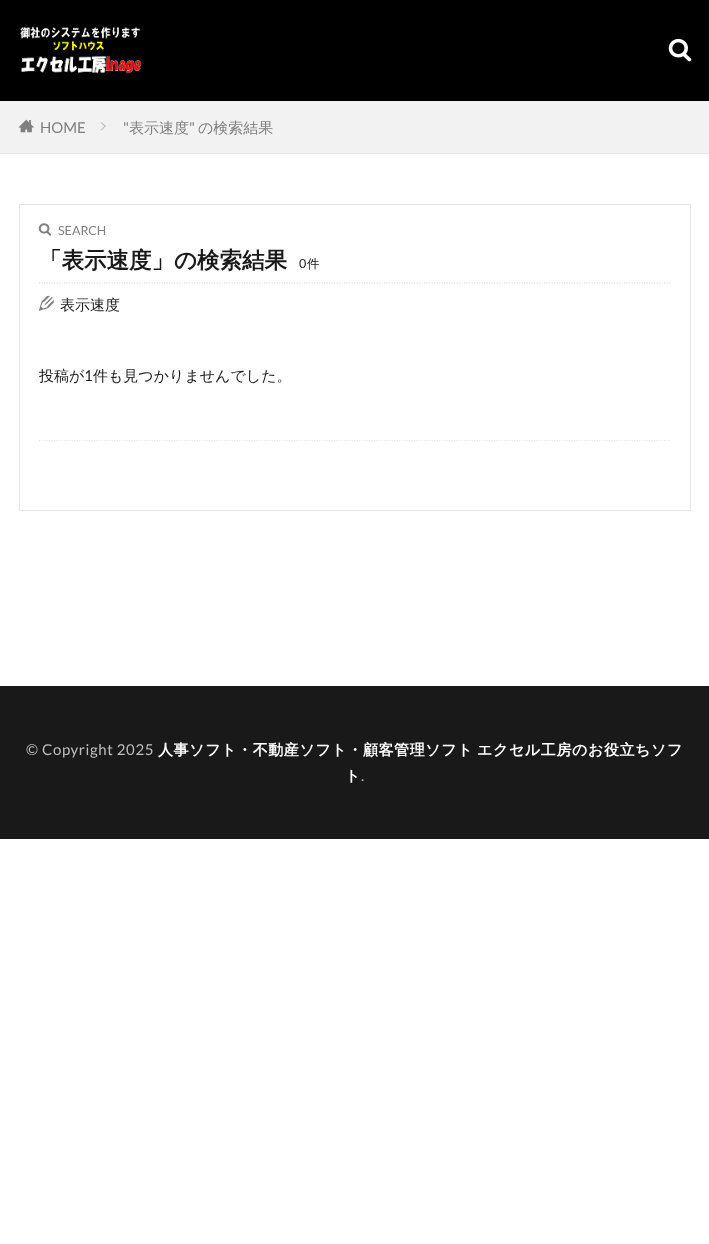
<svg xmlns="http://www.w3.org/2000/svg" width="709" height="1244">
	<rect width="100%" height="100%" fill="#FFFFFF" />
	<rect x="0" y="0" width="709" height="101" fill="#000000" />
	<image x="20" y="26" width="122" height="48" href="assets/img1.png" />
	<image x="668" y="38" width="24" height="24" href="assets/img2.png" />
	<rect x="0" y="101" width="709" height="52" fill="#F2F2F2" />
	<rect x="0" y="153" width="709" height="1" fill="#E6E6E6" />
	<image x="18" y="119" width="16" height="14" href="assets/img3.png" />
	<text x="40" y="133" font-family="Lato" font-size="15" fill="#7F7F7F">HOME</text>
	<path d="M101.5 122L106 126L105 127L100.5 122.5Z" fill="#BFBFBF" />
	<path d="M105 125.5L106 126L101.5 130.5L100.5 130Z" fill="#BFBFBF" />
	<text x="123" y="133" font-family="Lato" font-size="15" fill="#7F7F7F">"</text>
	<text x="129" y="133" font-family="WenQuanYi Zen Hei" font-size="15" font-weight="500" fill="#7F7F7F">表示速度</text>
	<text x="189" y="133" font-family="Lato" font-size="15" fill="#7F7F7F">"</text>
	<text x="198" y="133" font-family="WenQuanYi Zen Hei" font-size="15" font-weight="500" fill="#7F7F7F">の検索結果</text>
	<rect x="19.5" y="204.5" width="671" height="306" fill="none" stroke="#E6E6E6" />
	<image x="38" y="223" width="14" height="13" href="assets/img4.png" />
	<text x="58" y="235" font-family="Lato" font-size="12.5" fill="#7F7F7F">SEARCH</text>
	<path d="M39 283H671" fill="none" stroke="#D8D8D8" stroke-width="1.2" stroke-dasharray="1.25 1.25" />
	<text x="39" y="268" font-family="WenQuanYi Zen Hei" font-size="22.5" font-weight="700" fill="#191919">「表示速度」の検索結果</text>
	<text x="299" y="268" font-family="Lato" font-size="12.5" fill="#191919">0</text>
	<text x="307" y="268" font-family="WenQuanYi Zen Hei" font-size="12.5" font-weight="500" fill="#191919">件</text>
	<image x="38" y="295" width="16" height="16" href="assets/img5.png" />
	<text x="60" y="310" font-family="WenQuanYi Zen Hei" font-size="15" font-weight="500" fill="#191919">表示速度</text>
	<path d="M39 440.5H671" fill="none" stroke="#E6E6E6" stroke-width="1.2" stroke-dasharray="1.25 1.25" />
	<text x="39" y="381" font-family="WenQuanYi Zen Hei" font-size="15" font-weight="500" fill="#191919">投稿が</text>
	<text x="84" y="381" font-family="Lato" font-size="15" fill="#191919">1</text>
	<text x="93" y="381" font-family="WenQuanYi Zen Hei" font-size="15" font-weight="500" fill="#191919">件も見つかりませんでした。</text>
	<rect x="0" y="686" width="709" height="153" fill="#191919" />
	<text x="26" y="755" font-family="Lato" font-size="15" letter-spacing="0.6" fill="#BFBFBF">© Copyright 2025</text>
	<g font-family="WenQuanYi Zen Hei" font-size="15" font-weight="700" letter-spacing="0.6" fill="#FFFFFF">
		<text x="158" y="755">人事ソフト・不動産ソフト・顧客管理ソフト</text>
		<text x="477" y="755">エクセル工房のお役立ちソフ</text>
		<text x="345" y="781">ト</text>
	</g>
	<text x="361" y="781" font-family="Lato" font-size="15" letter-spacing="0.6" fill="#BFBFBF">.</text>
</svg>
